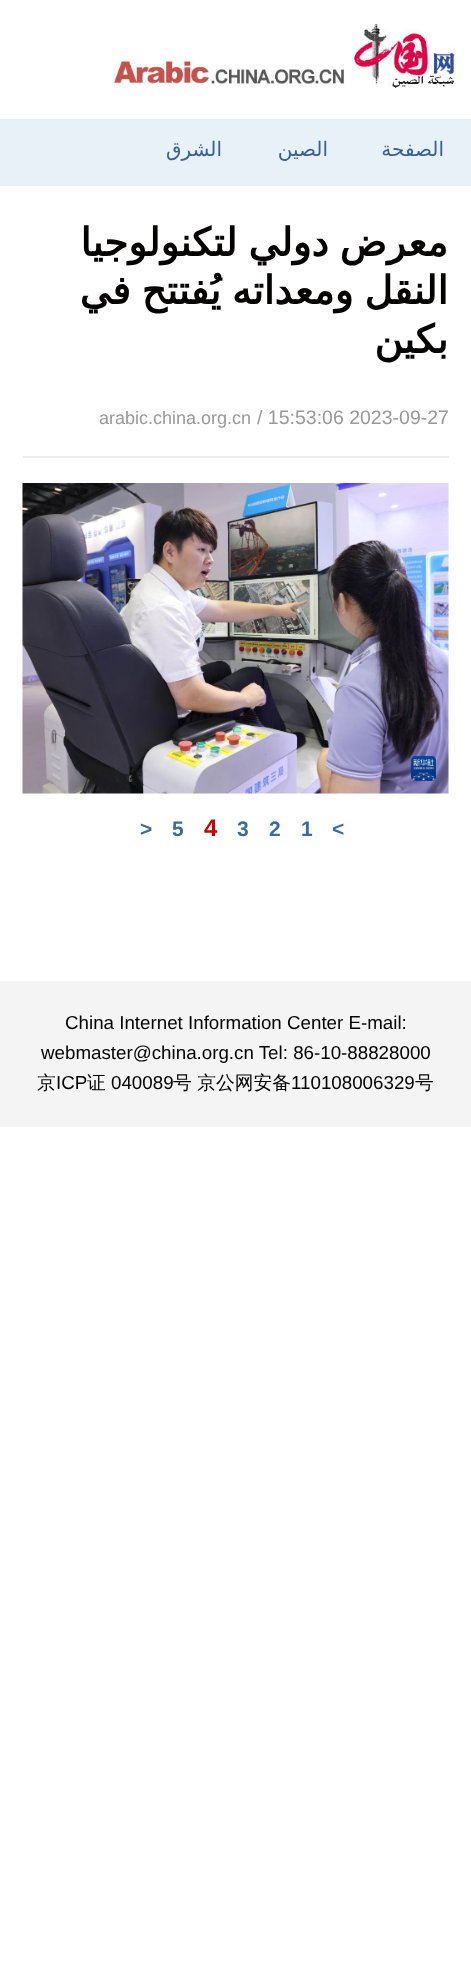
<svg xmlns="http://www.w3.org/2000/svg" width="471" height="1979">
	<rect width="100%" height="100%" fill="#FFFFFF" />
	<image x="112" y="23" width="344" height="65" href="assets/img1.png" />
	<rect x="0" y="119" width="471" height="67" fill="#E9F1F8" />
	<g font-family="DejaVu Sans" font-size="20" direction="rtl" fill="#35609C">
		<text x="222" y="156">الشرق</text>
		<text x="328" y="156">الصين</text>
		<text x="444" y="156">الصفحة</text>
	</g>
	<g font-family="DejaVu Sans" font-size="39" font-weight="700" direction="rtl" fill="#030000">
		<text x="448" y="256" word-spacing="-1.5">معرض دولي لتكنولوجيا</text>
		<text x="448" y="304" word-spacing="-1.5">النقل ومعداته يُفتتح في</text>
		<text x="448" y="353">بكين</text>
	</g>
	<rect x="23" y="456" width="426" height="2" fill="#EEEEEE" />
	<text x="99" y="424" font-family="Liberation Sans" font-size="18" fill="#999999">arabic.china.org.cn</text>
	<text x="257" y="424" font-family="Liberation Sans" font-size="19.5" fill="#999999">/ 15:53:06 2023-09-27</text>
	<image x="22" y="483" width="427" height="311" href="assets/img2.png" />
	<g font-family="Liberation Sans" font-size="21" font-weight="700" fill="#386BA3">
		<text x="140" y="836">&gt;</text>
		<text x="172" y="836">5</text>
	</g>
	<text x="204" y="836" font-family="Liberation Sans" font-size="24" font-weight="700" fill="#CC0000">4</text>
	<g font-family="Liberation Sans" font-size="21" font-weight="700" fill="#386BA3">
		<text x="237" y="836">3</text>
		<text x="269" y="836">2</text>
		<text x="301" y="836">1</text>
		<text x="332" y="836">&lt;</text>
	</g>
	<rect x="0" y="981" width="471" height="146" fill="#F4F4F4" />
	<g font-family="Liberation Sans" font-size="18.75" fill="#030000">
		<text x="65" y="1029">China Internet Information Center E-mail:</text>
		<text x="41" y="1059">webmaster@china.org.cn Tel: 86-10-88828000</text>
	</g>
	<text x="37" y="1089" font-family="WenQuanYi Zen Hei" font-size="18.75" font-weight="500" fill="#030000">京</text>
	<text x="56" y="1089" font-family="Liberation Sans" font-size="18.75" fill="#030000">ICP</text>
	<text x="87" y="1089" font-family="WenQuanYi Zen Hei" font-size="18.75" font-weight="500" fill="#030000">证</text>
	<text x="111" y="1089" font-family="Liberation Sans" font-size="18.75" fill="#030000">040089</text>
	<text x="173" y="1089" font-family="WenQuanYi Zen Hei" font-size="18.75" font-weight="500" fill="#030000">号 京公网安备</text>
	<text x="291" y="1089" font-family="Liberation Sans" font-size="18.75" fill="#030000">110108006329</text>
	<text x="415" y="1089" font-family="WenQuanYi Zen Hei" font-size="18.75" font-weight="500" fill="#030000">号</text>
</svg>
